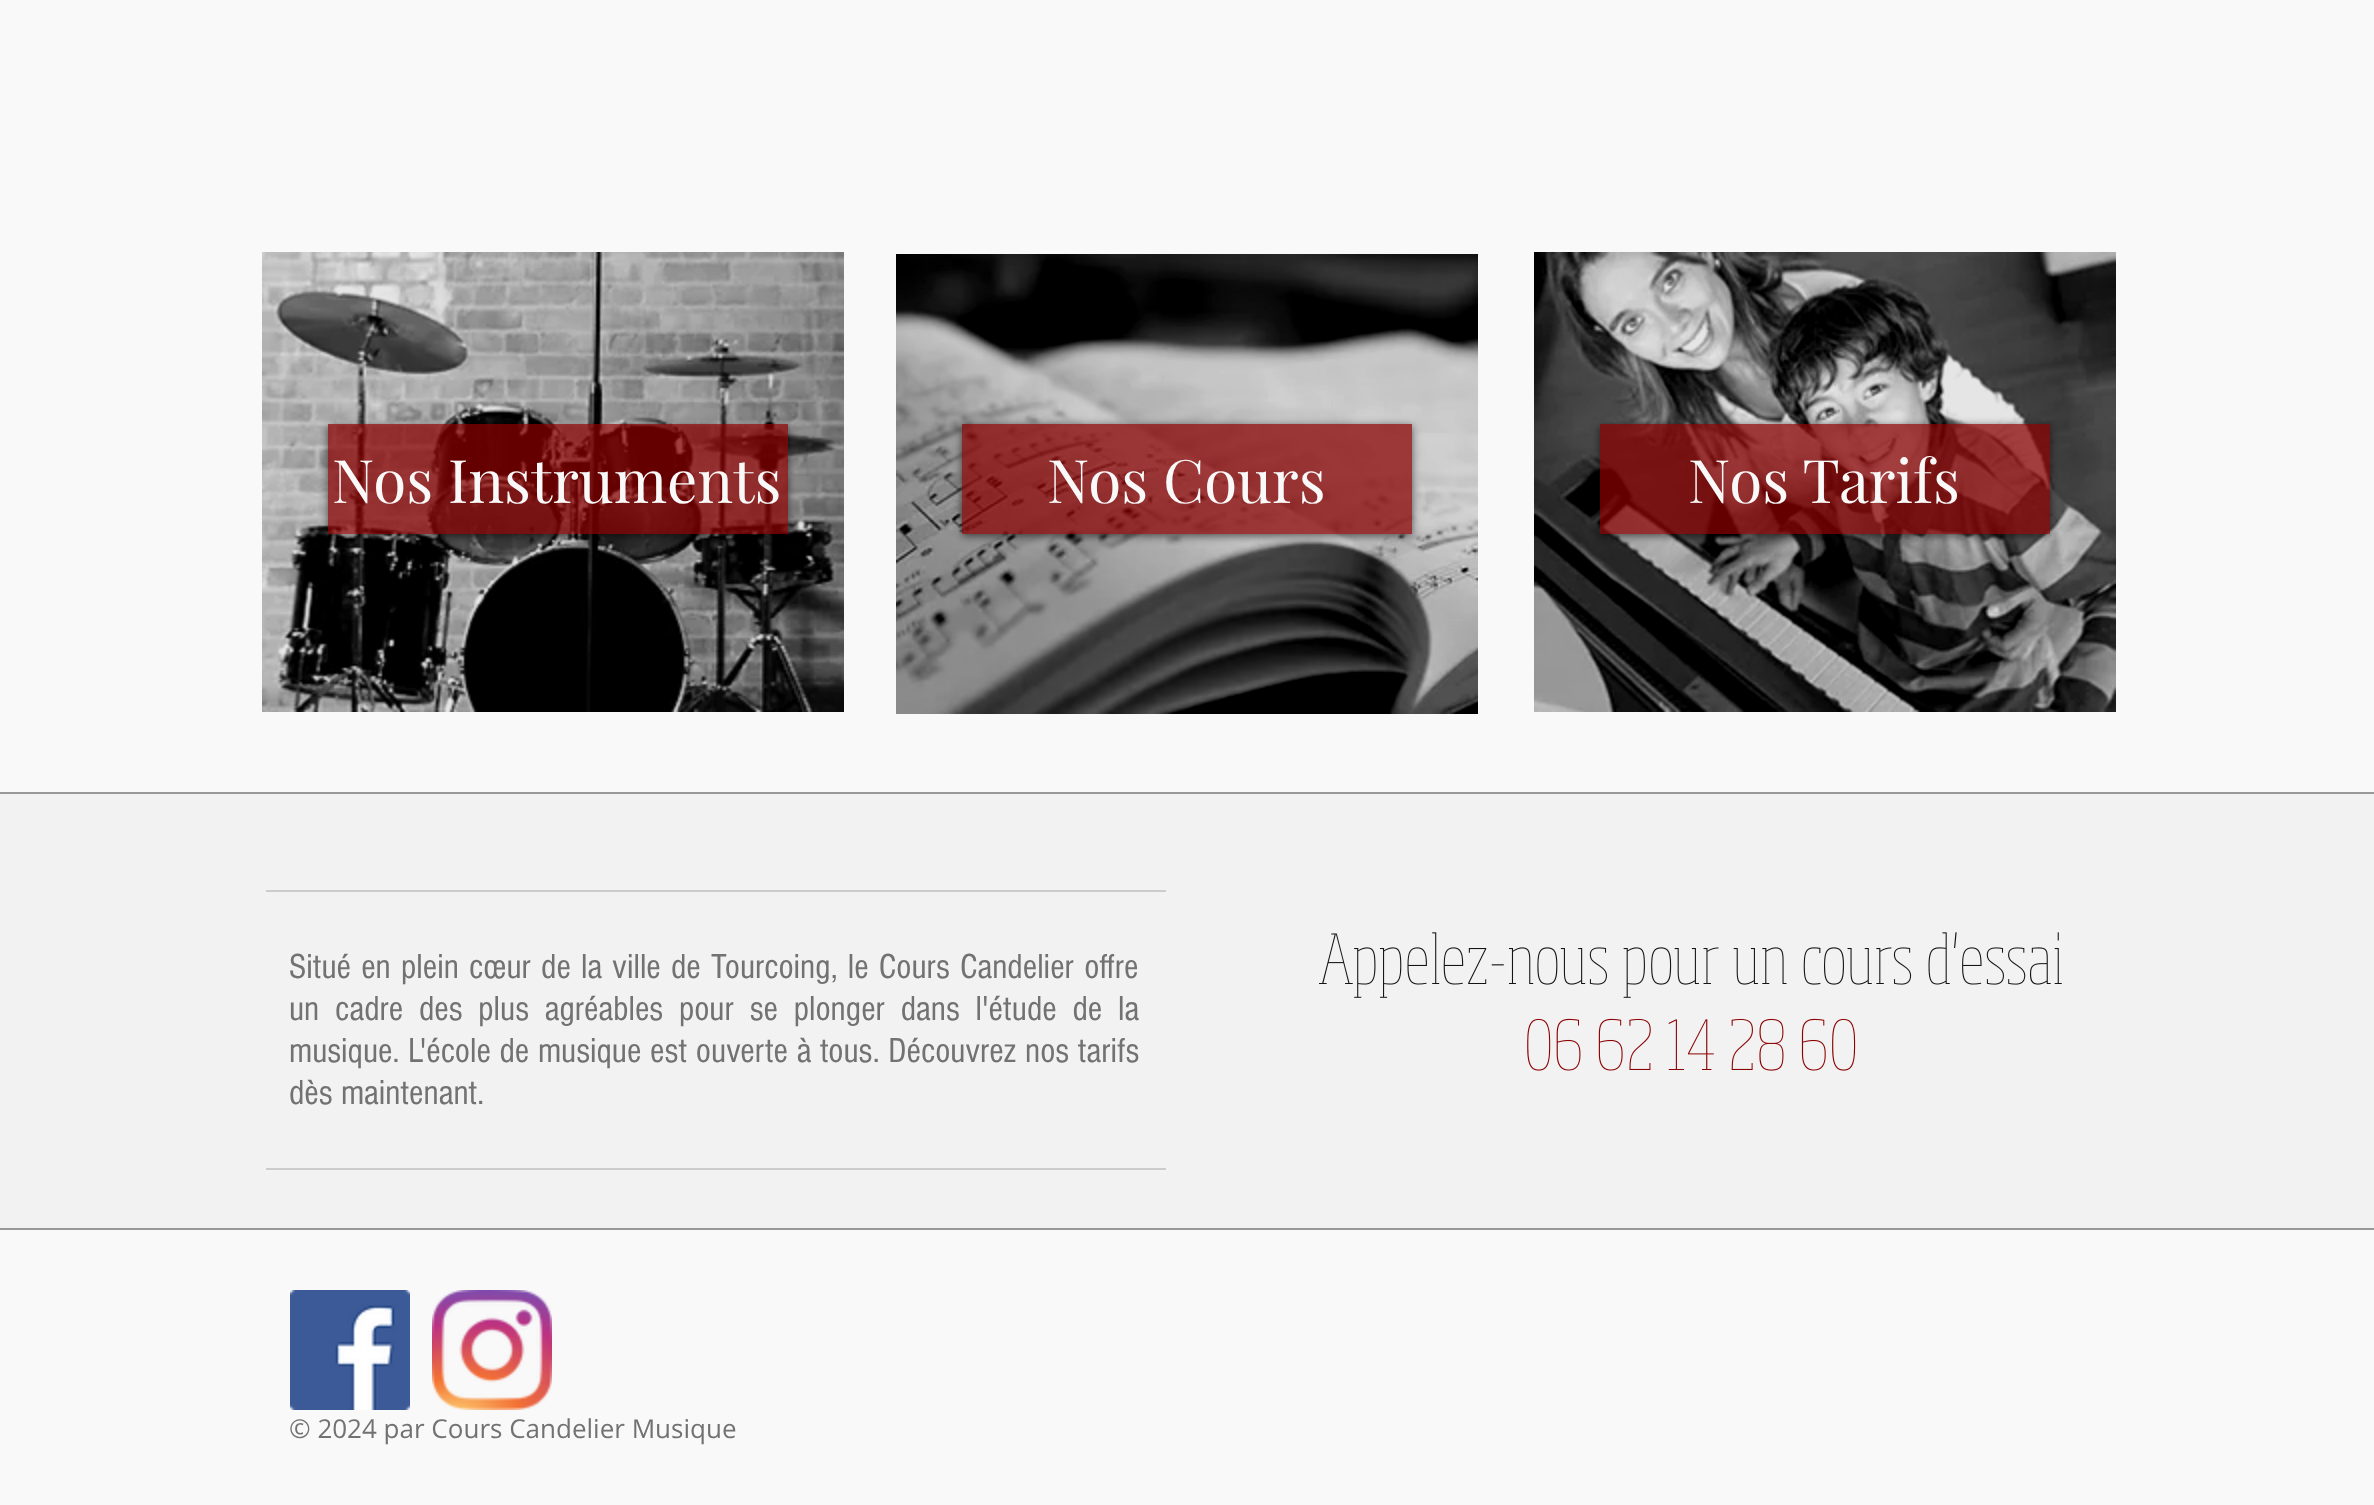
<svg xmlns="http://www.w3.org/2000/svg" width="2374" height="1505">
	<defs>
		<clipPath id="clip1"><path d="M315 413H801V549H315ZM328 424H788V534H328Z" clip-rule="evenodd" /></clipPath>
		<clipPath id="clip2"><path d="M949 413H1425V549H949ZM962 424H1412V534H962Z" clip-rule="evenodd" /></clipPath>
		<clipPath id="clip3"><path d="M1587 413H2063V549H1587ZM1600 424H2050V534H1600Z" clip-rule="evenodd" /></clipPath>
	</defs>
	<rect width="100%" height="100%" fill="#F9F9F9" />
	<image x="262" y="252" width="582" height="460" href="assets/img1.png" />
	<image x="896" y="254" width="582" height="460" href="assets/img2.png" />
	<image x="1534" y="252" width="582" height="460" href="assets/img3.png" />
	<g clip-path="url(#clip1)">
		<rect x="328" y="426" width="460" height="110" fill="#000000" fill-opacity="0.6" filter="blur(4px)" />
	</g>
	<rect x="328" y="424" width="460" height="110" fill="#8B0000" fill-opacity="0.73" />
	<text x="332" y="503" font-family="Playfair Display" font-size="60" fill="#F9F9F9">Nos Instruments</text>
	<g clip-path="url(#clip2)">
		<rect x="962" y="426" width="450" height="110" fill="#000000" fill-opacity="0.6" filter="blur(4px)" />
	</g>
	<rect x="962" y="424" width="450" height="110" fill="#8B0000" fill-opacity="0.73" />
	<text x="1047" y="503" font-family="Playfair Display" font-size="60" fill="#F9F9F9">Nos Cours</text>
	<g clip-path="url(#clip3)">
		<rect x="1600" y="426" width="450" height="110" fill="#000000" fill-opacity="0.6" filter="blur(4px)" />
	</g>
	<rect x="1600" y="424" width="450" height="110" fill="#8B0000" fill-opacity="0.73" />
	<text x="1688" y="503" font-family="Playfair Display" font-size="60" fill="#F9F9F9">Nos Tarifs</text>
	<rect x="0" y="794" width="2374" height="434" fill="#F3F2F2" />
	<rect x="0" y="792" width="2374" height="2" fill="#999898" />
	<rect x="0" y="1228" width="2374" height="2" fill="#999898" />
	<rect x="266" y="890" width="900" height="2" fill="#CDCCCC" />
	<g font-family="'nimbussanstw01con'" font-size="36" fill="#727272">
		<text x="289" y="978" word-spacing="1.75">Situé en plein cœur de la ville de Tourcoing, le Cours Candelier offre</text>
		<text x="289" y="1020" word-spacing="7.4">un cadre des plus agréables pour se plonger dans l'étude de la</text>
		<text x="289" y="1062" word-spacing="0.25">musique. L'école de musique est ouverte à tous. Découvrez nos tarifs</text>
		<text x="289" y="1104">dès maintenant.</text>
	</g>
	<image x="1319" y="932" width="743" height="66" href="assets/img4.png" />
	<image x="1527" y="1018" width="329" height="53" href="assets/img5.png" />
	<rect x="266" y="1168" width="900" height="2" fill="#CDCCCC" />
	<image x="290" y="1290" width="120" height="120" href="assets/img6.png" />
	<image x="432" y="1290" width="120" height="120" href="assets/img7.png" />
	<text x="289" y="1438" font-family="Open Sans" font-size="26" fill="#727272">© 2024 par Cours Candelier Musique</text>
</svg>
